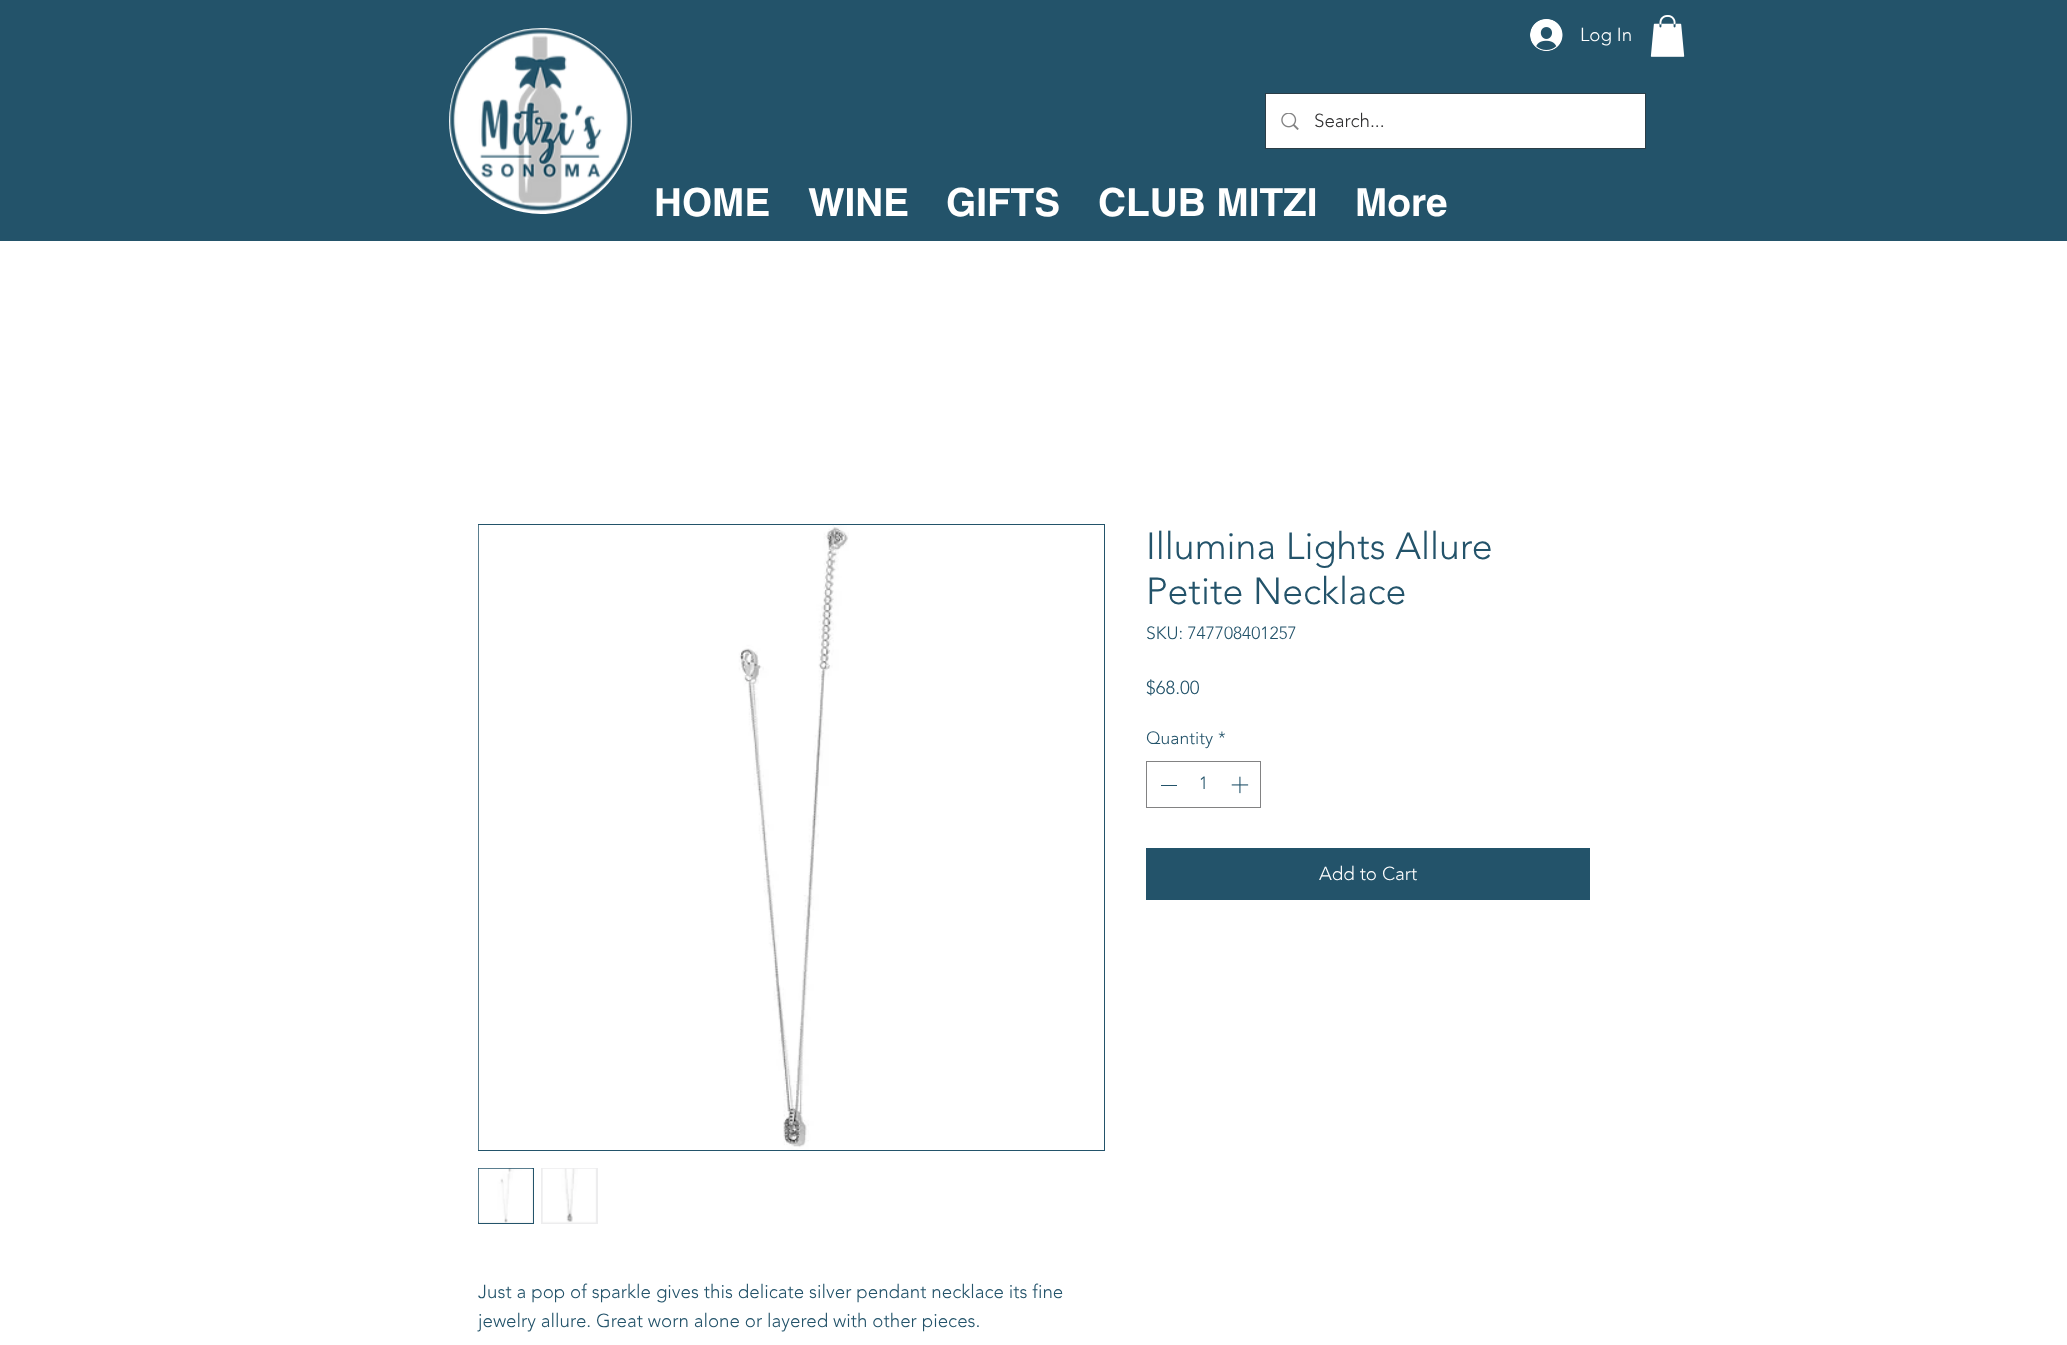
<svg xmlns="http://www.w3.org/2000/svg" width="2067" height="1345">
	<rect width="100%" height="100%" fill="#FFFFFF" />
	<rect x="0" y="0" width="2067" height="241" fill="#23536A" />
	<path d="M632 121C632 172 591 214 541 214C490 214 449 172 449 121C449 69 490 28 541 28C591 28 632 69 632 121Z" fill="#FFFFFF" />
	<image x="1530" y="19" width="33" height="32" href="assets/img1.png" />
	<text x="1580" y="41" font-family="'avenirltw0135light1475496'" font-size="18.75" font-weight="300" fill="#FFFFFF">Log In</text>
	<image x="1650" y="15" width="35" height="42" href="assets/img2.png" />
	<image x="449" y="28" width="183" height="184" href="assets/img3.png" />
	<rect x="1265.5" y="93.5" width="380" height="55" fill="none" stroke="#2A3D47" />
	<rect x="1266" y="94" width="379" height="54" fill="#FFFFFF" />
	<image x="1281" y="113" width="18" height="17" href="assets/img4.png" />
	<text x="1314" y="127" font-family="'avenirltw0135light1475496'" font-size="18.75" font-weight="300" fill="#2F2F30">Search...</text>
	<g font-family="helvetica" font-size="38.75" font-weight="700" fill="#FFFFFF">
		<text x="654" y="216">HOME</text>
		<text x="808" y="216">WINE</text>
		<text x="946" y="216">GIFTS</text>
		<text x="1098" y="216">CLUB MITZI</text>
		<text x="1355" y="216">More</text>
	</g>
	<g font-family="'avenirltw0135light1475496'" font-size="37.5" font-weight="300" fill="#23536A">
		<text x="1146" y="559">Illumina Lights Allure</text>
		<text x="1146" y="604">Petite Necklace</text>
	</g>
	<text x="1146" y="639" font-family="'avenirltw0135light1475496'" font-size="17.5" font-weight="300" fill="#23536A">SKU: 747708401257</text>
	<text x="1146" y="694" font-family="'avenirltw0135light1475496'" font-size="18.75" font-weight="300" fill="#23536A">$68.00</text>
	<g font-family="'avenirltw0135light1475496'" font-size="17.5" font-weight="300" fill="#23536A">
		<text x="1146" y="744">Quantity</text>
		<text x="1218" y="744">*</text>
	</g>
	<rect x="1146.5" y="761.5" width="114" height="46" fill="none" stroke="#828283" />
	<rect x="1161" y="785" width="16" height="1" fill="#23536A" />
	<text x="1199" y="789" font-family="'avenirltw0135light1475496'" font-size="17.5" font-weight="300" fill="#23536A">1</text>
	<image x="1231" y="776" width="18" height="18" href="assets/img5.png" />
	<rect x="1146" y="848" width="444" height="52" fill="#23536A" />
	<text x="1319" y="880" font-family="'avenirltw0135light1475496'" font-size="18.75" font-weight="300" fill="#FFFFFF">Add to Cart</text>
	<rect x="478.5" y="524.5" width="626" height="626" fill="none" stroke="#23536A" />
	<image x="478" y="525" width="371" height="625" href="assets/img6.png" />
	<rect x="478.5" y="1168.5" width="55" height="55" fill="#EDEDEE" stroke="#23536A" />
	<image x="478" y="1168" width="55" height="55" href="assets/img7.png" />
	<rect x="541" y="1168" width="57" height="56" fill="#EDEDEE" />
	<image x="542" y="1168" width="54" height="55" href="assets/img8.png" />
	<g font-family="'avenirltw0135light1475496'" font-size="18.75" font-weight="300" fill="#23536A">
		<text x="478" y="1298">Just a pop of sparkle gives this delicate silver pendant necklace its fine</text>
		<text x="478" y="1327">jewelry allure. Great worn alone or layered with other pieces.</text>
	</g>
</svg>
